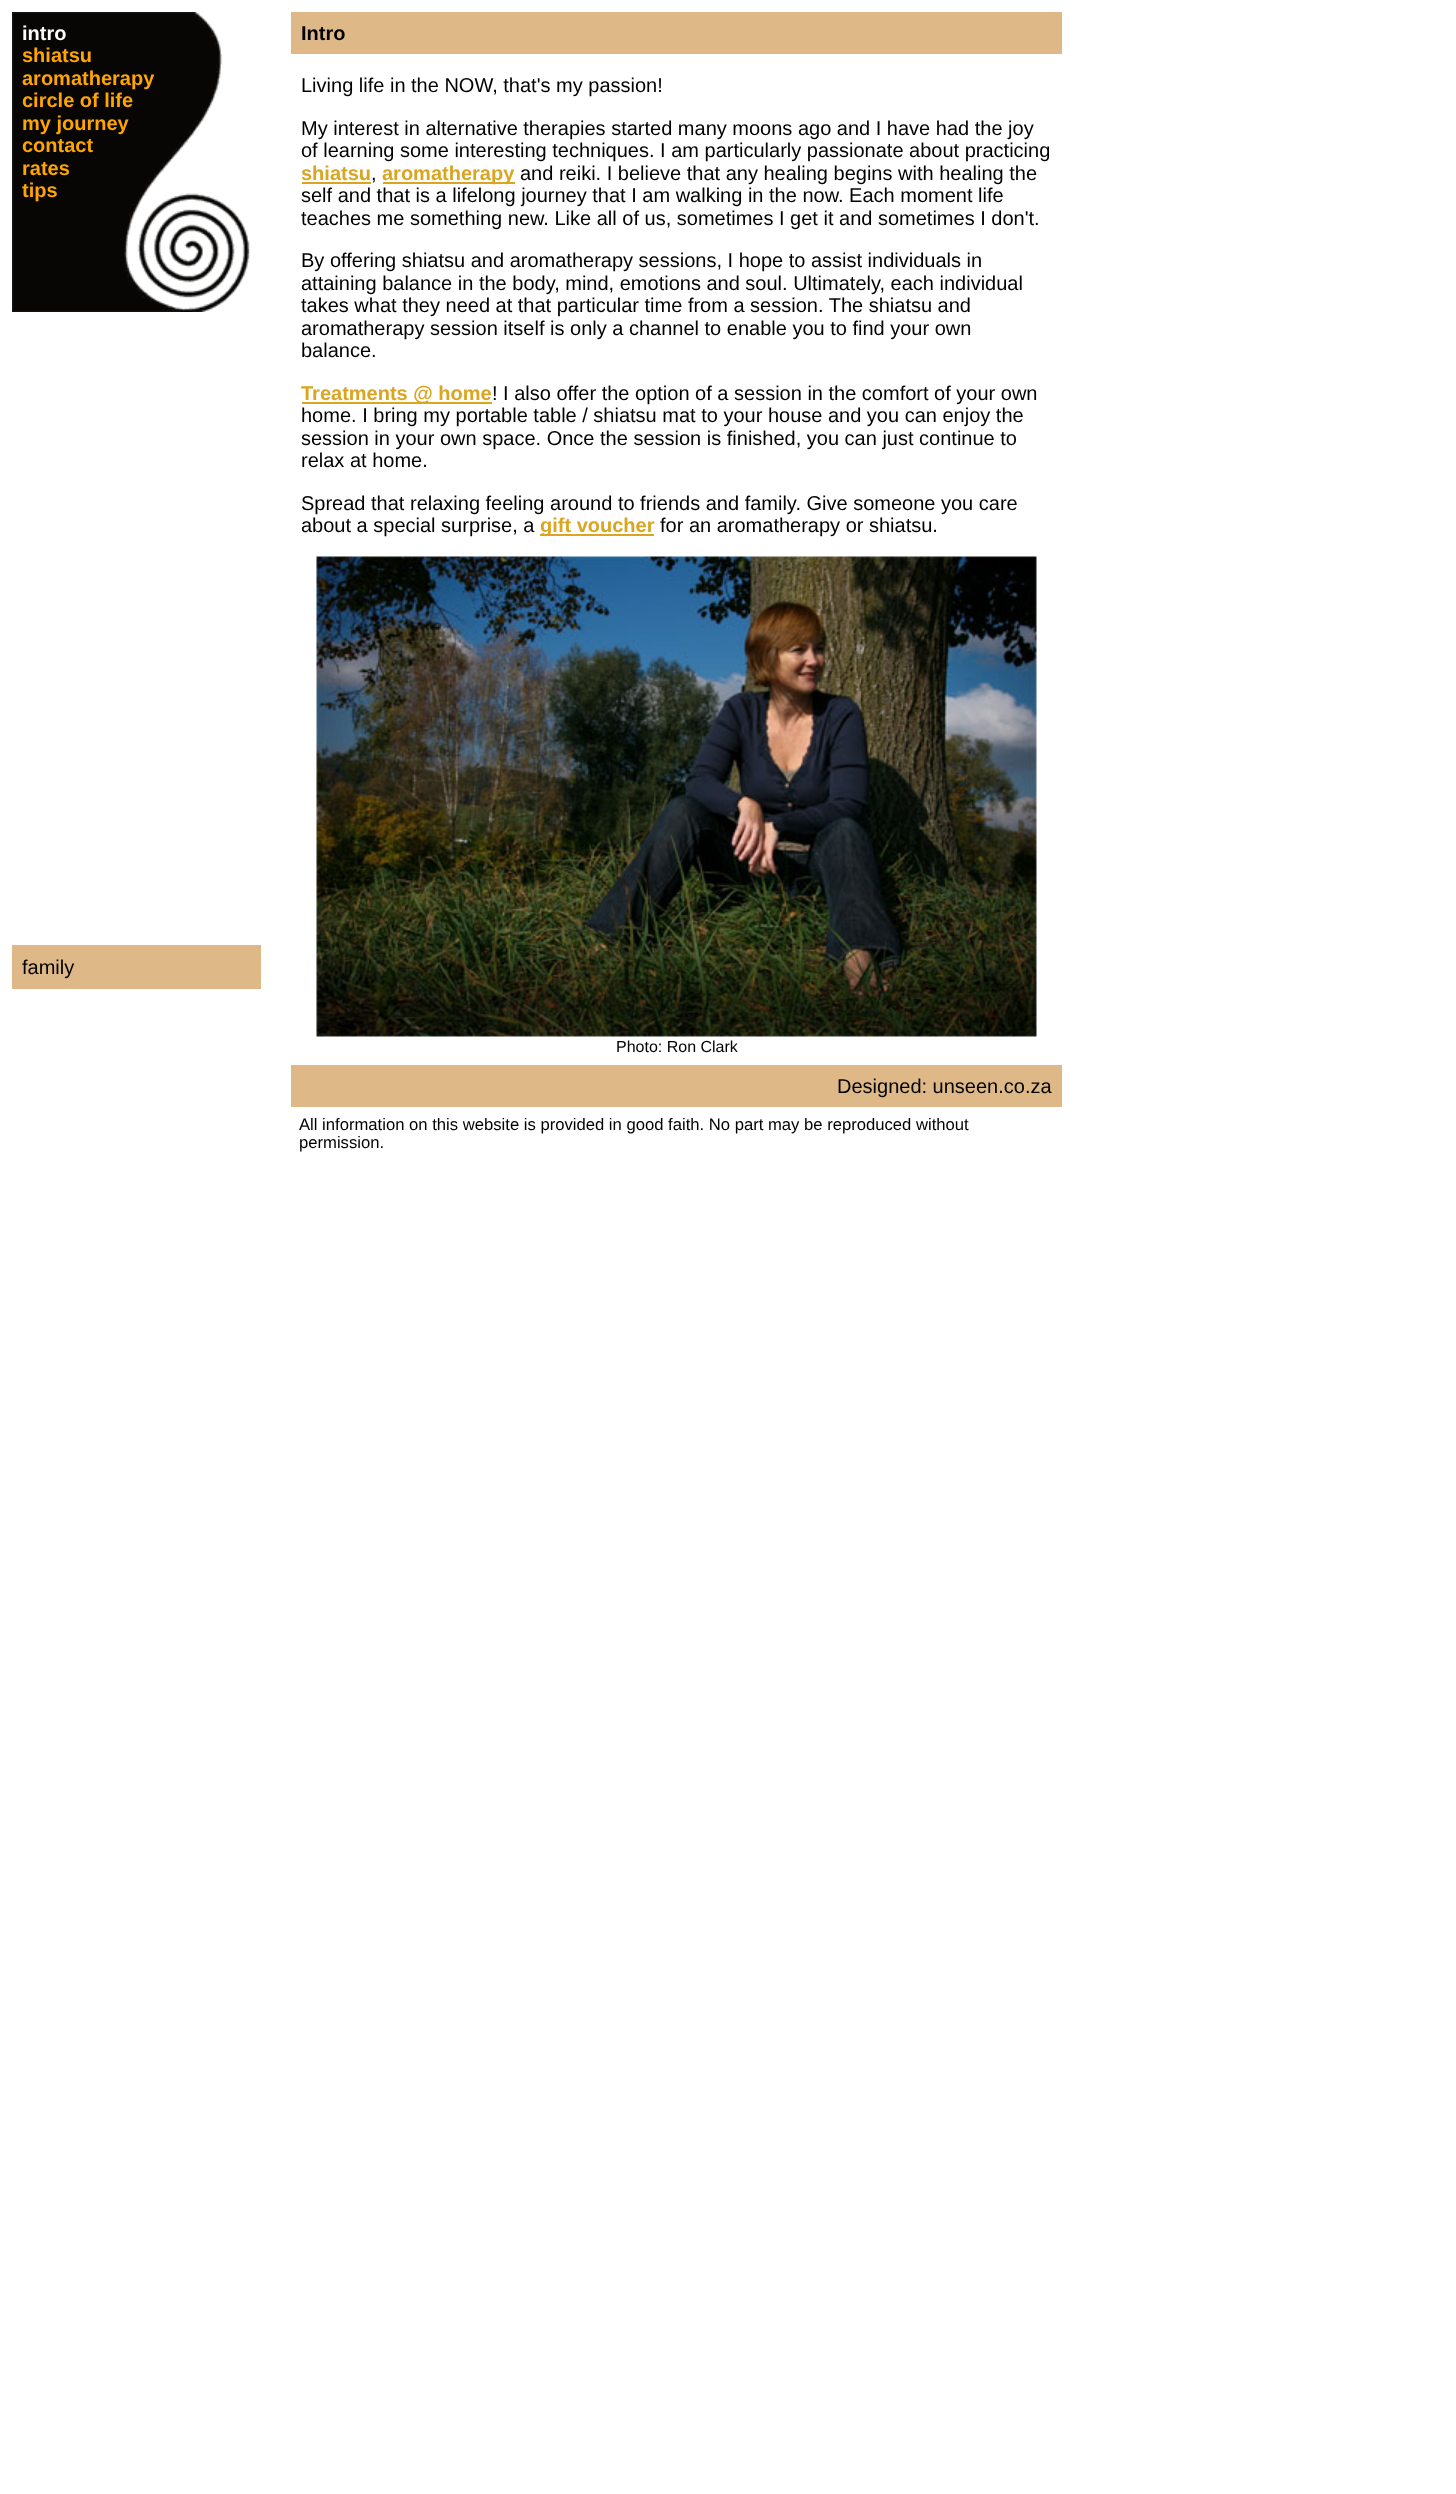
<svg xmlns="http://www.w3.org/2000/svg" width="1456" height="2494">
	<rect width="100%" height="100%" fill="#FFFFFF" />
	<image x="12" y="12" width="238" height="300" href="assets/img1.png" />
	<text x="22" y="40" font-family="Liberation Sans" font-size="20" font-weight="700" fill="#FFFFFF">intro</text>
	<g font-family="Liberation Sans" font-size="20" font-weight="700" fill="#FFA500">
		<text x="22" y="62">shiatsu</text>
		<text x="22" y="85">aromatherapy</text>
		<text x="22" y="107">circle of life</text>
		<text x="22" y="130">my journey</text>
		<text x="22" y="152">contact</text>
		<text x="22" y="175">rates</text>
		<text x="22" y="197">tips</text>
	</g>
	<rect x="291" y="12" width="771" height="42" fill="#DEB887" />
	<text x="301" y="40" font-family="Liberation Sans" font-size="20" font-weight="700" fill="#000000">Intro</text>
	<g font-family="Liberation Sans" font-size="20" fill="#000000">
		<text x="301" y="92">Living life in the NOW, that's my passion!</text>
		<text x="301" y="135">My interest in alternative therapies started many moons ago and I have had the joy</text>
		<text x="301" y="157">of learning some interesting techniques. I am particularly passionate about practicing</text>
	</g>
	<text x="301" y="180" font-family="Liberation Sans" font-size="20" font-weight="700" fill="#DAA520">shiatsu</text>
	<rect x="302" y="182" width="69" height="2" fill="#DAA520" />
	<text x="371" y="180" font-family="Liberation Sans" font-size="20" fill="#000000">,</text>
	<rect x="383" y="182" width="132" height="2" fill="#DAA520" />
	<text x="382" y="180" font-family="Liberation Sans" font-size="20" font-weight="700" fill="#DAA520">aromatherapy</text>
	<g font-family="Liberation Sans" font-size="20" fill="#000000">
		<text x="520" y="180">and reiki. I believe that any healing begins with healing the</text>
		<text x="301" y="202">self and that is a lifelong journey that I am walking in the now. Each moment life</text>
		<text x="301" y="225">teaches me something new. Like all of us, sometimes I get it and sometimes I don't.</text>
		<text x="301" y="267">By offering shiatsu and aromatherapy sessions, I hope to assist individuals in</text>
		<text x="301" y="290">attaining balance in the body, mind, emotions and soul. Ultimately, each individual</text>
		<text x="301" y="312">takes what they need at that particular time from a session. The shiatsu and</text>
		<text x="301" y="335">aromatherapy session itself is only a channel to enable you to find your own</text>
		<text x="301" y="357">balance.</text>
	</g>
	<rect x="302" y="402" width="190" height="2" fill="#DAA520" />
	<text x="301" y="400" font-family="Liberation Sans" font-size="20" font-weight="700" fill="#DAA520">Treatments @ home</text>
	<g font-family="Liberation Sans" font-size="20" fill="#000000">
		<text x="492" y="400">! I also offer the option of a session in the comfort of your own</text>
		<text x="301" y="422">home. I bring my portable table / shiatsu mat to your house and you can enjoy the</text>
		<text x="301" y="445">session in your own space. Once the session is finished, you can just continue to</text>
		<text x="301" y="467">relax at home.</text>
		<text x="301" y="510">Spread that relaxing feeling around to friends and family. Give someone you care</text>
		<text x="301" y="532">about a special surprise, a</text>
	</g>
	<rect x="540" y="534" width="114" height="2" fill="#DAA520" />
	<text x="540" y="532" font-family="Liberation Sans" font-size="20" font-weight="700" fill="#DAA520">gift voucher</text>
	<text x="660" y="532" font-family="Liberation Sans" font-size="20" fill="#000000">for an aromatherapy or shiatsu.</text>
	<image x="316" y="556" width="721" height="481" href="assets/img2.png" />
	<text x="616" y="1052" font-family="Liberation Sans" font-size="16" fill="#000000">Photo: Ron Clark</text>
	<rect x="291" y="1065" width="771" height="42" fill="#DEB887" />
	<text x="837" y="1093" font-family="Liberation Sans" font-size="20" fill="#000000">Designed: unseen.co.za</text>
	<g font-family="Liberation Sans" font-size="16.65" fill="#000000">
		<text x="299" y="1130">All information on this website is provided in good faith. No part may be reproduced without</text>
		<text x="299" y="1148">permission.</text>
	</g>
	<rect x="12" y="945" width="249" height="44" fill="#DEB887" />
	<text x="22" y="974" font-family="Liberation Sans" font-size="20" fill="#000000">family</text>
</svg>
